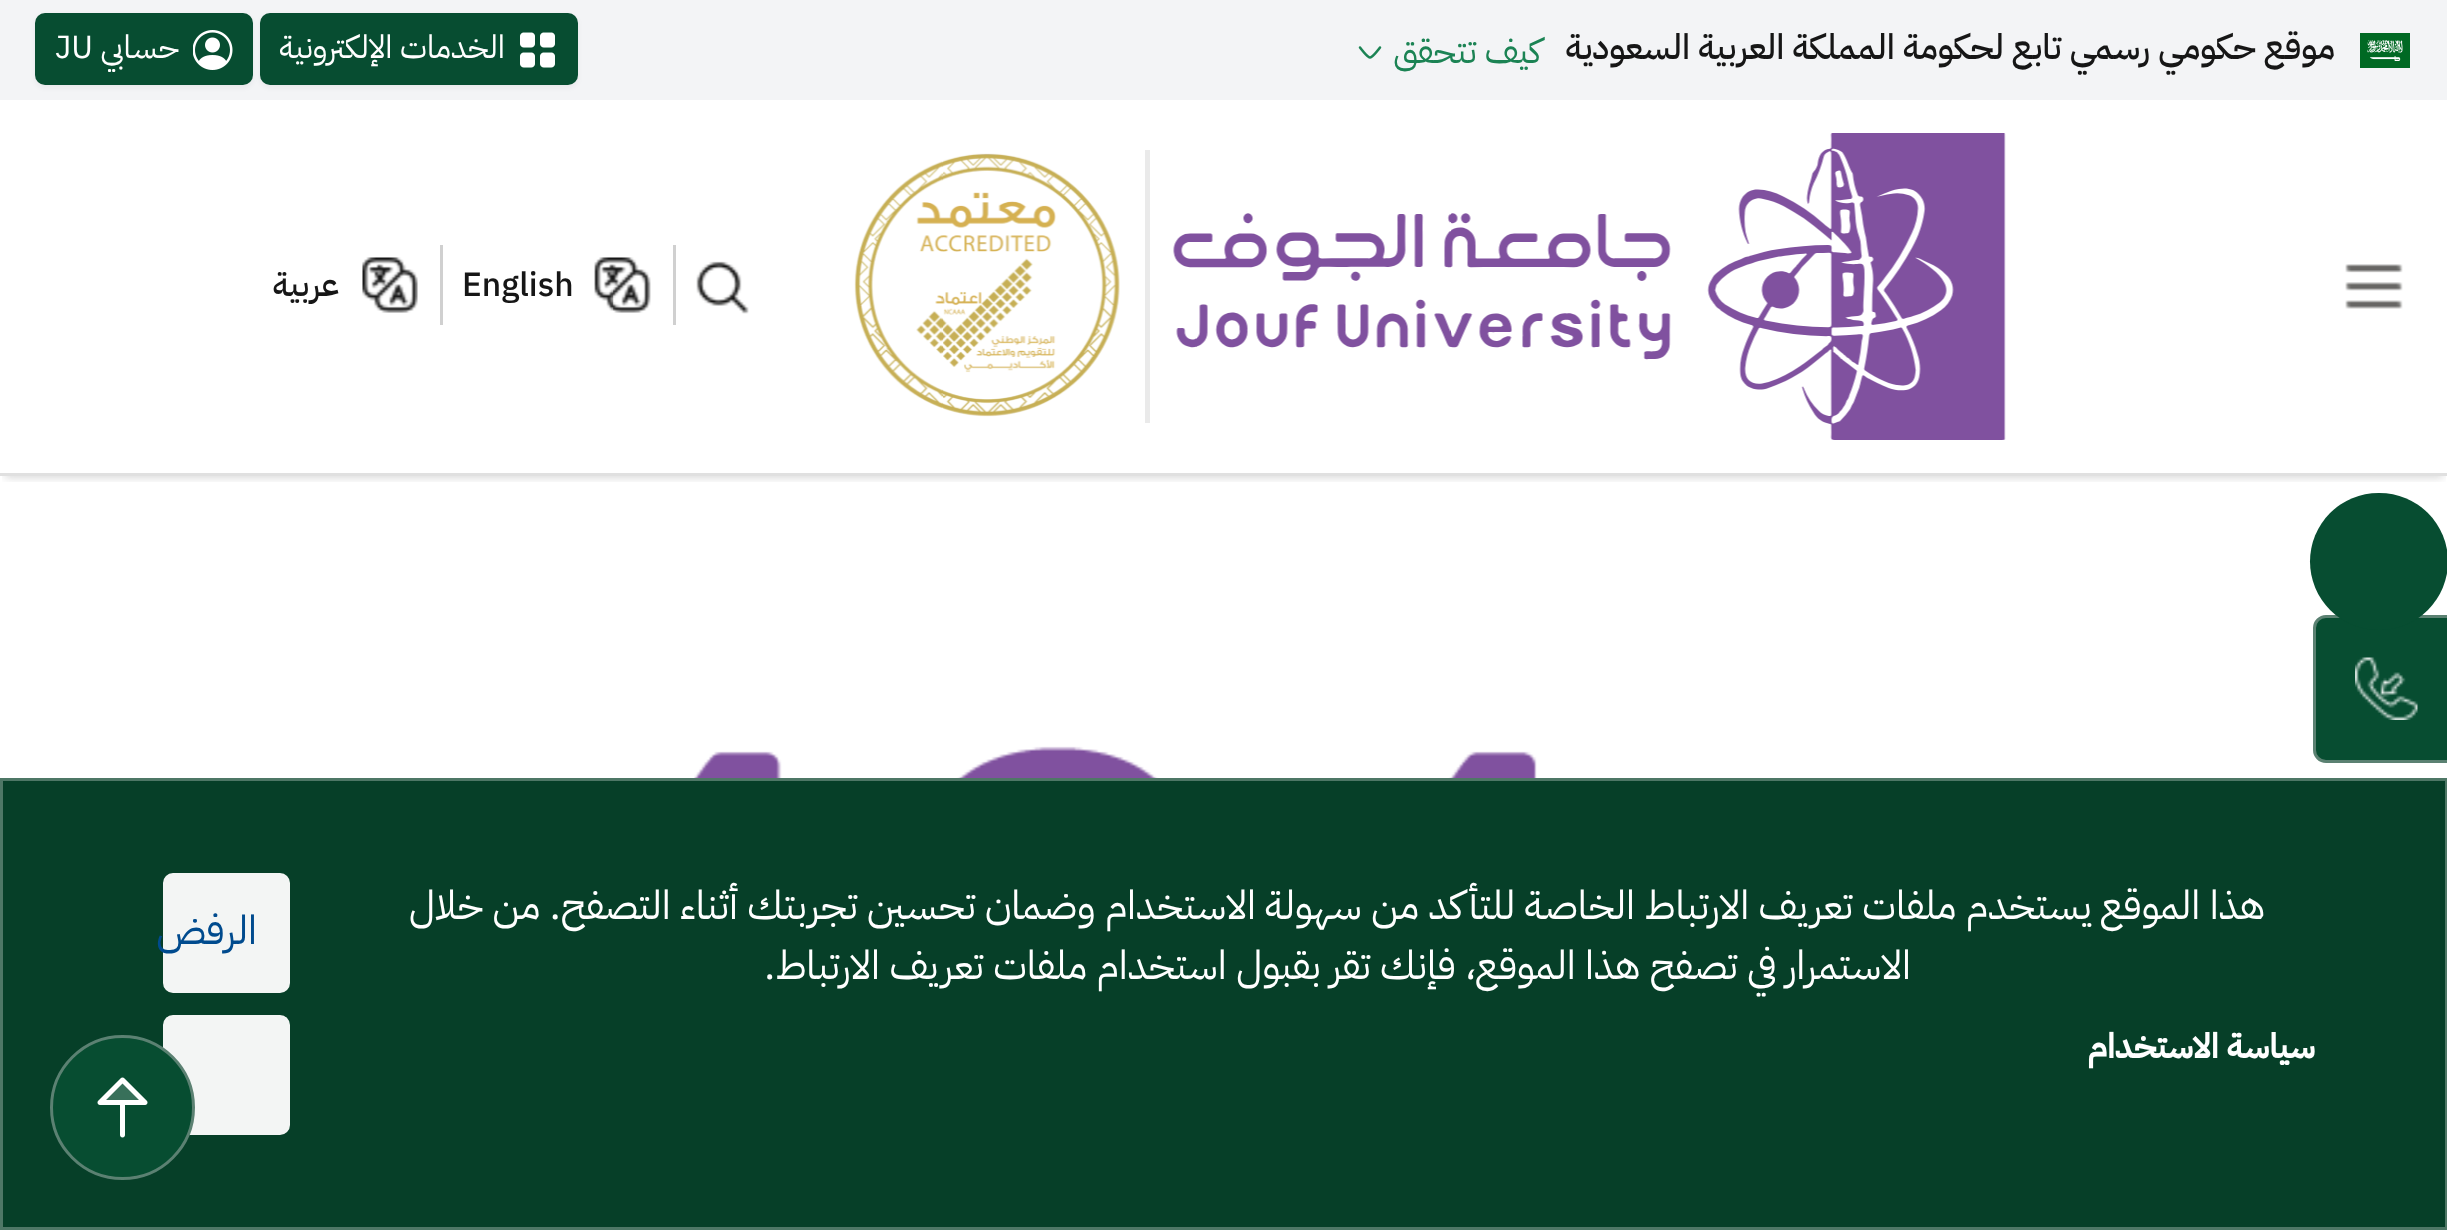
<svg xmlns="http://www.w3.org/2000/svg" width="2447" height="1230">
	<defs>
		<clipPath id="clip1"><rect x="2" y="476" width="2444" height="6" /></clipPath>
	</defs>
	<rect width="100%" height="100%" fill="#FFFFFF" />
	<rect x="2314.5" y="616.5" width="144" height="145" rx="11.5" fill="#074D31" stroke="#5B8172" stroke-width="3" />
	<rect x="2310" y="493" width="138" height="137" rx="68.5" fill="#074D31" />
	<rect x="0" y="0" width="2447" height="100" fill="#F3F4F6" />
	<image x="2360" y="33" width="50" height="35" href="assets/img1.png" />
	<text x="2335" y="59" font-family="IBM Plex Sans Arabic" font-size="35" font-weight="500" direction="rtl" fill="#161616">موقع حكومي رسمي تابع لحكومة المملكة العربية السعودية</text>
	<text x="1541" y="63" font-family="IBM Plex Sans Arabic" font-size="35" direction="rtl" fill="#1B8354">كيف تتحقق</text>
	<image x="1358" y="46" width="24" height="13" href="assets/img2.png" />
	<rect x="35" y="15" width="218" height="73" rx="10" fill="#101828" fill-opacity="0.05" filter="blur(2.5px)" />
	<rect x="35" y="13" width="218" height="72" rx="10" fill="#074D31" />
	<rect x="260" y="15" width="318" height="73" rx="10" fill="#101828" fill-opacity="0.05" filter="blur(2.5px)" />
	<rect x="260" y="13" width="318" height="72" rx="10" fill="#074D31" />
	<image x="520" y="32" width="35" height="36" href="assets/img3.png" />
	<text x="505" y="58" font-family="IBM Plex Sans Arabic" font-size="32" direction="rtl" fill="#FFFFFF">الخدمات الإلكترونية</text>
	<image x="193" y="30" width="40" height="40" href="assets/img4.png" />
	<text x="179" y="58" font-family="IBM Plex Sans Arabic" font-size="32" direction="rtl" fill="#FFFFFF">حسابي</text>
	<text x="55" y="58" font-family="IBM Plex Sans Arabic" font-size="32" fill="#FFFFFF">JU</text>
	<g clip-path="url(#clip1)">
		<rect x="5" y="113" width="2438" height="365" fill="#000000" fill-opacity="0.15" filter="blur(4px)" />
	</g>
	<rect x="0" y="473" width="2447" height="3" fill="#E0E0E0" />
	<image x="2345" y="264" width="58" height="45" href="assets/img5.png" />
	<image x="1173" y="133" width="833" height="307" href="assets/img6.png" />
	<rect x="1145" y="150" width="5" height="273" fill="#EAEAEA" />
	<image x="854" y="153" width="266" height="264" href="assets/img7.png" />
	<image x="696" y="261" width="53" height="53" href="assets/img8.png" />
	<rect x="673" y="245" width="3" height="80" fill="#D0D0D0" />
	<image x="594" y="257" width="57" height="56" href="assets/img9.png" />
	<text x="462" y="296" font-family="IBM Plex Sans Arabic" font-size="33.5" font-weight="500" fill="#161616">English</text>
	<rect x="440" y="245" width="3" height="80" fill="#D0D0D0" />
	<image x="362" y="257" width="56" height="56" href="assets/img10.png" />
	<text x="339" y="296" font-family="IBM Plex Sans Arabic" font-size="33.5" font-weight="500" direction="rtl" fill="#161616">عربية</text>
	<image x="2355" y="657" width="63" height="63" href="assets/img11.png" />
	<image x="694" y="746" width="843" height="32" href="assets/img12.png" />
	<rect x="1.5" y="779.5" width="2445" height="449" fill="#063F28" stroke="#4E7766" stroke-width="3" />
	<g font-family="IBM Plex Sans Arabic" font-size="40" direction="rtl" fill="#FFFFFF">
		<text x="2265" y="919">هذا الموقع يستخدم ملفات تعريف الارتباط الخاصة للتأكد من سهولة الاستخدام وضمان تحسين تجربتك أثناء التصفح. من خلال</text>
		<text x="1911" y="979">الاستمرار في تصفح هذا الموقع، فإنك تقر بقبول استخدام ملفات تعريف الارتباط.</text>
	</g>
	<text x="2315" y="1058" font-family="IBM Plex Sans Arabic" font-size="34" font-weight="700" direction="rtl" fill="#FFFFFF">سياسة الاستخدام</text>
	<rect x="164.5" y="874.5" width="124" height="117" rx="8.5" fill="#F3F5F4" stroke="#F3F5F4" stroke-width="3" />
	<text x="257" y="944" font-family="IBM Plex Sans Arabic" font-size="40" direction="rtl" fill="#004B8E">الرفض</text>
	<rect x="164.5" y="1016.5" width="124" height="117" rx="8.5" fill="#F3F5F4" stroke="#F3F5F4" stroke-width="3" />
	<circle cx="122.5" cy="1107.5" r="71" fill="#074D31" stroke="#5B8172" stroke-width="3" />
	<image x="97" y="1077" width="51" height="61" href="assets/img13.png" />
</svg>
